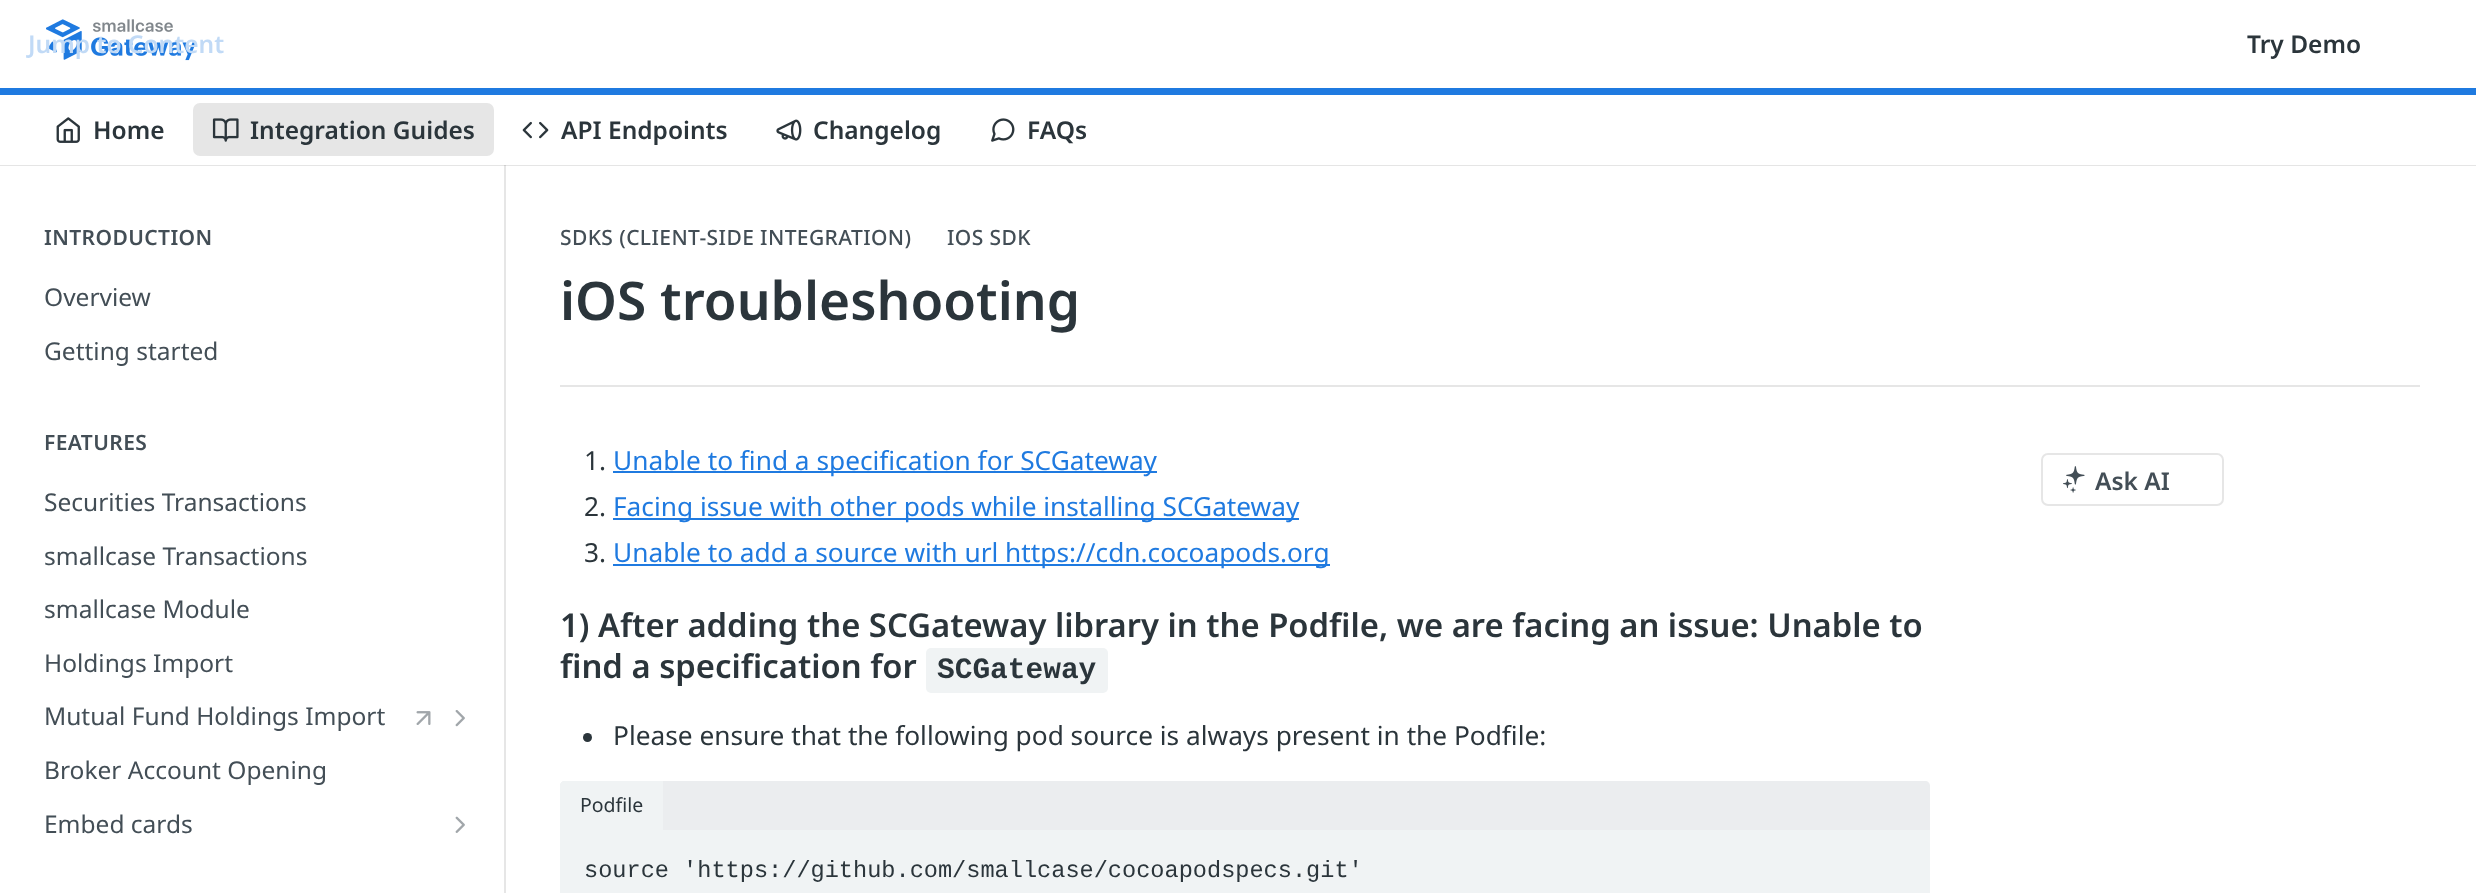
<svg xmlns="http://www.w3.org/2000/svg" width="2476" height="893">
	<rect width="100%" height="100%" fill="#FFFFFF" />
	<path d="M2 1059H506V165H504V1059Z" fill="#E6E6E6" />
	<rect x="0" y="165" width="2476" height="1" fill="#000000" fill-opacity="0.1" />
	<rect x="0" y="88" width="2476" height="7" fill="#1F7AE0" />
	<image x="46" y="19" width="150" height="42" href="assets/img1.png" />
	<text x="28" y="53" font-family="Noto Sans" font-size="24.5" font-weight="600" fill="#C1DAF6">Jump to Content</text>
	<text x="2247" y="53" font-family="Noto Sans" font-size="24.5" font-weight="600" fill="#2B353B">Try Demo</text>
	<image x="56" y="117" width="24" height="26" href="assets/img2.png" />
	<text x="93" y="139" font-family="Noto Sans" font-size="24.5" font-weight="600" fill="#2B353B">Home</text>
	<rect x="193" y="103" width="301" height="53" rx="7" fill="#E6E6E6" />
	<image x="212" y="118" width="27" height="24" href="assets/img3.png" />
	<text x="250" y="139" font-family="Noto Sans" font-size="24.5" font-weight="600" fill="#2B353B">Integration Guides</text>
	<image x="522" y="121" width="27" height="18" href="assets/img4.png" />
	<text x="561" y="139" font-family="Noto Sans" font-size="24.5" font-weight="600" fill="#2B353B">API Endpoints</text>
	<image x="776" y="119" width="26" height="22" href="assets/img5.png" />
	<text x="813" y="139" font-family="Noto Sans" font-size="24.5" font-weight="600" fill="#2B353B">Changelog</text>
	<image x="991" y="118" width="24" height="24" href="assets/img6.png" />
	<text x="1027" y="139" font-family="Noto Sans" font-size="24.5" font-weight="600" fill="#2B353B">FAQs</text>
	<text x="44" y="245" font-family="Noto Sans" font-size="21" font-weight="600" letter-spacing="0.4" fill="#434E56">INTRODUCTION</text>
	<g font-family="Noto Sans" font-size="24.5" fill="#434E56">
		<text x="44" y="306">Overview</text>
		<text x="44" y="360">Getting started</text>
	</g>
	<text x="44" y="450" font-family="Noto Sans" font-size="21" font-weight="600" letter-spacing="0.4" fill="#434E56">FEATURES</text>
	<g font-family="Noto Sans" font-size="24.5" fill="#434E56">
		<text x="44" y="511">Securities Transactions</text>
		<text x="44" y="565">smallcase Transactions</text>
		<text x="44" y="618">smallcase Module</text>
		<text x="44" y="672">Holdings Import</text>
		<text x="44" y="725">Mutual Fund Holdings Import</text>
	</g>
	<image x="416" y="711" width="15" height="14" href="assets/img7.png" />
	<image x="455" y="710" width="10" height="17" href="assets/img8.png" />
	<g font-family="Noto Sans" font-size="24.5" fill="#434E56">
		<text x="44" y="779">Broker Account Opening</text>
		<text x="44" y="833">Embed cards</text>
	</g>
	<image x="455" y="816" width="10" height="17" href="assets/img9.png" />
	<rect x="560" y="385" width="1860" height="2" fill="#E6E6E6" />
	<g font-family="Noto Sans" font-size="21" font-weight="500" letter-spacing="0.4" fill="#434E56">
		<text x="560" y="245">SDKS (CLIENT-SIDE INTEGRATION)</text>
		<text x="947" y="245">IOS SDK</text>
	</g>
	<text x="560" y="320" font-family="Noto Sans" font-size="53.25" font-weight="600" fill="#2B353B">iOS troubleshooting</text>
	<text x="584" y="470" font-family="Noto Sans" font-size="26.25" fill="#2B353B">1.</text>
	<rect x="613" y="471" width="544" height="2" fill="#1F7AE0" />
	<text x="613" y="470" font-family="Noto Sans" font-size="26.25" fill="#1F7AE0">Unable to find a specification for SCGateway</text>
	<text x="584" y="516" font-family="Noto Sans" font-size="26.25" fill="#2B353B">2.</text>
	<rect x="613" y="518" width="686" height="2" fill="#1F7AE0" />
	<text x="613" y="516" font-family="Noto Sans" font-size="26.25" fill="#1F7AE0">Facing issue with other pods while installing SCGateway</text>
	<text x="584" y="562" font-family="Noto Sans" font-size="26.25" fill="#2B353B">3.</text>
	<rect x="613" y="564" width="717" height="2" fill="#1F7AE0" />
	<text x="613" y="562" font-family="Noto Sans" font-size="26.25" fill="#1F7AE0">Unable to add a source with url https://cdn.cocoapods.org</text>
	<g font-family="Noto Sans" font-size="32.8" font-weight="600" fill="#2B353B">
		<text x="560" y="637">1) After adding the SCGateway library in the Podfile, we are facing an issue: Unable to</text>
		<text x="560" y="678">find a specification for</text>
	</g>
	<rect x="926" y="648" width="182" height="45" rx="5" fill="#F0F3F4" />
	<text x="937" y="678" font-family="Liberation Mono" font-size="29.5" font-weight="700" fill="#2B353B">SCGateway</text>
	<circle cx="587.5" cy="737.5" r="4.5" fill="#2B353B" />
	<text x="613" y="745" font-family="Noto Sans" font-size="26.25" fill="#2B353B">Please ensure that the following pod source is always present in the Podfile:</text>
	<path d="M565 781H1925C1928 781 1930 783 1930 786V830H560V786C560 783 562 781 565 781Z" fill="#EBEDEF" />
	<path d="M565 781H663V830H560V786C560 783 562 781 565 781Z" fill="#F0F3F4" />
	<text x="580" y="812" font-family="Noto Sans" font-size="19.5" fill="#2B353B">Podfile</text>
	<rect x="560" y="830" width="1370" height="63" fill="#F0F3F4" />
	<text x="584" y="877" font-family="Liberation Mono" font-size="23.6" fill="#2B353B">source 'https://github.com/smallcase/cocoapodspecs.git'</text>
	<rect x="2042" y="454" width="181" height="51" rx="6" fill="none" stroke="#E6E6E6" stroke-width="2" />
	<image x="2063" y="466" width="22" height="27" href="assets/img10.png" />
	<text x="2095" y="490" font-family="Noto Sans" font-size="24.5" font-weight="600" fill="#434E56">Ask AI</text>
</svg>
